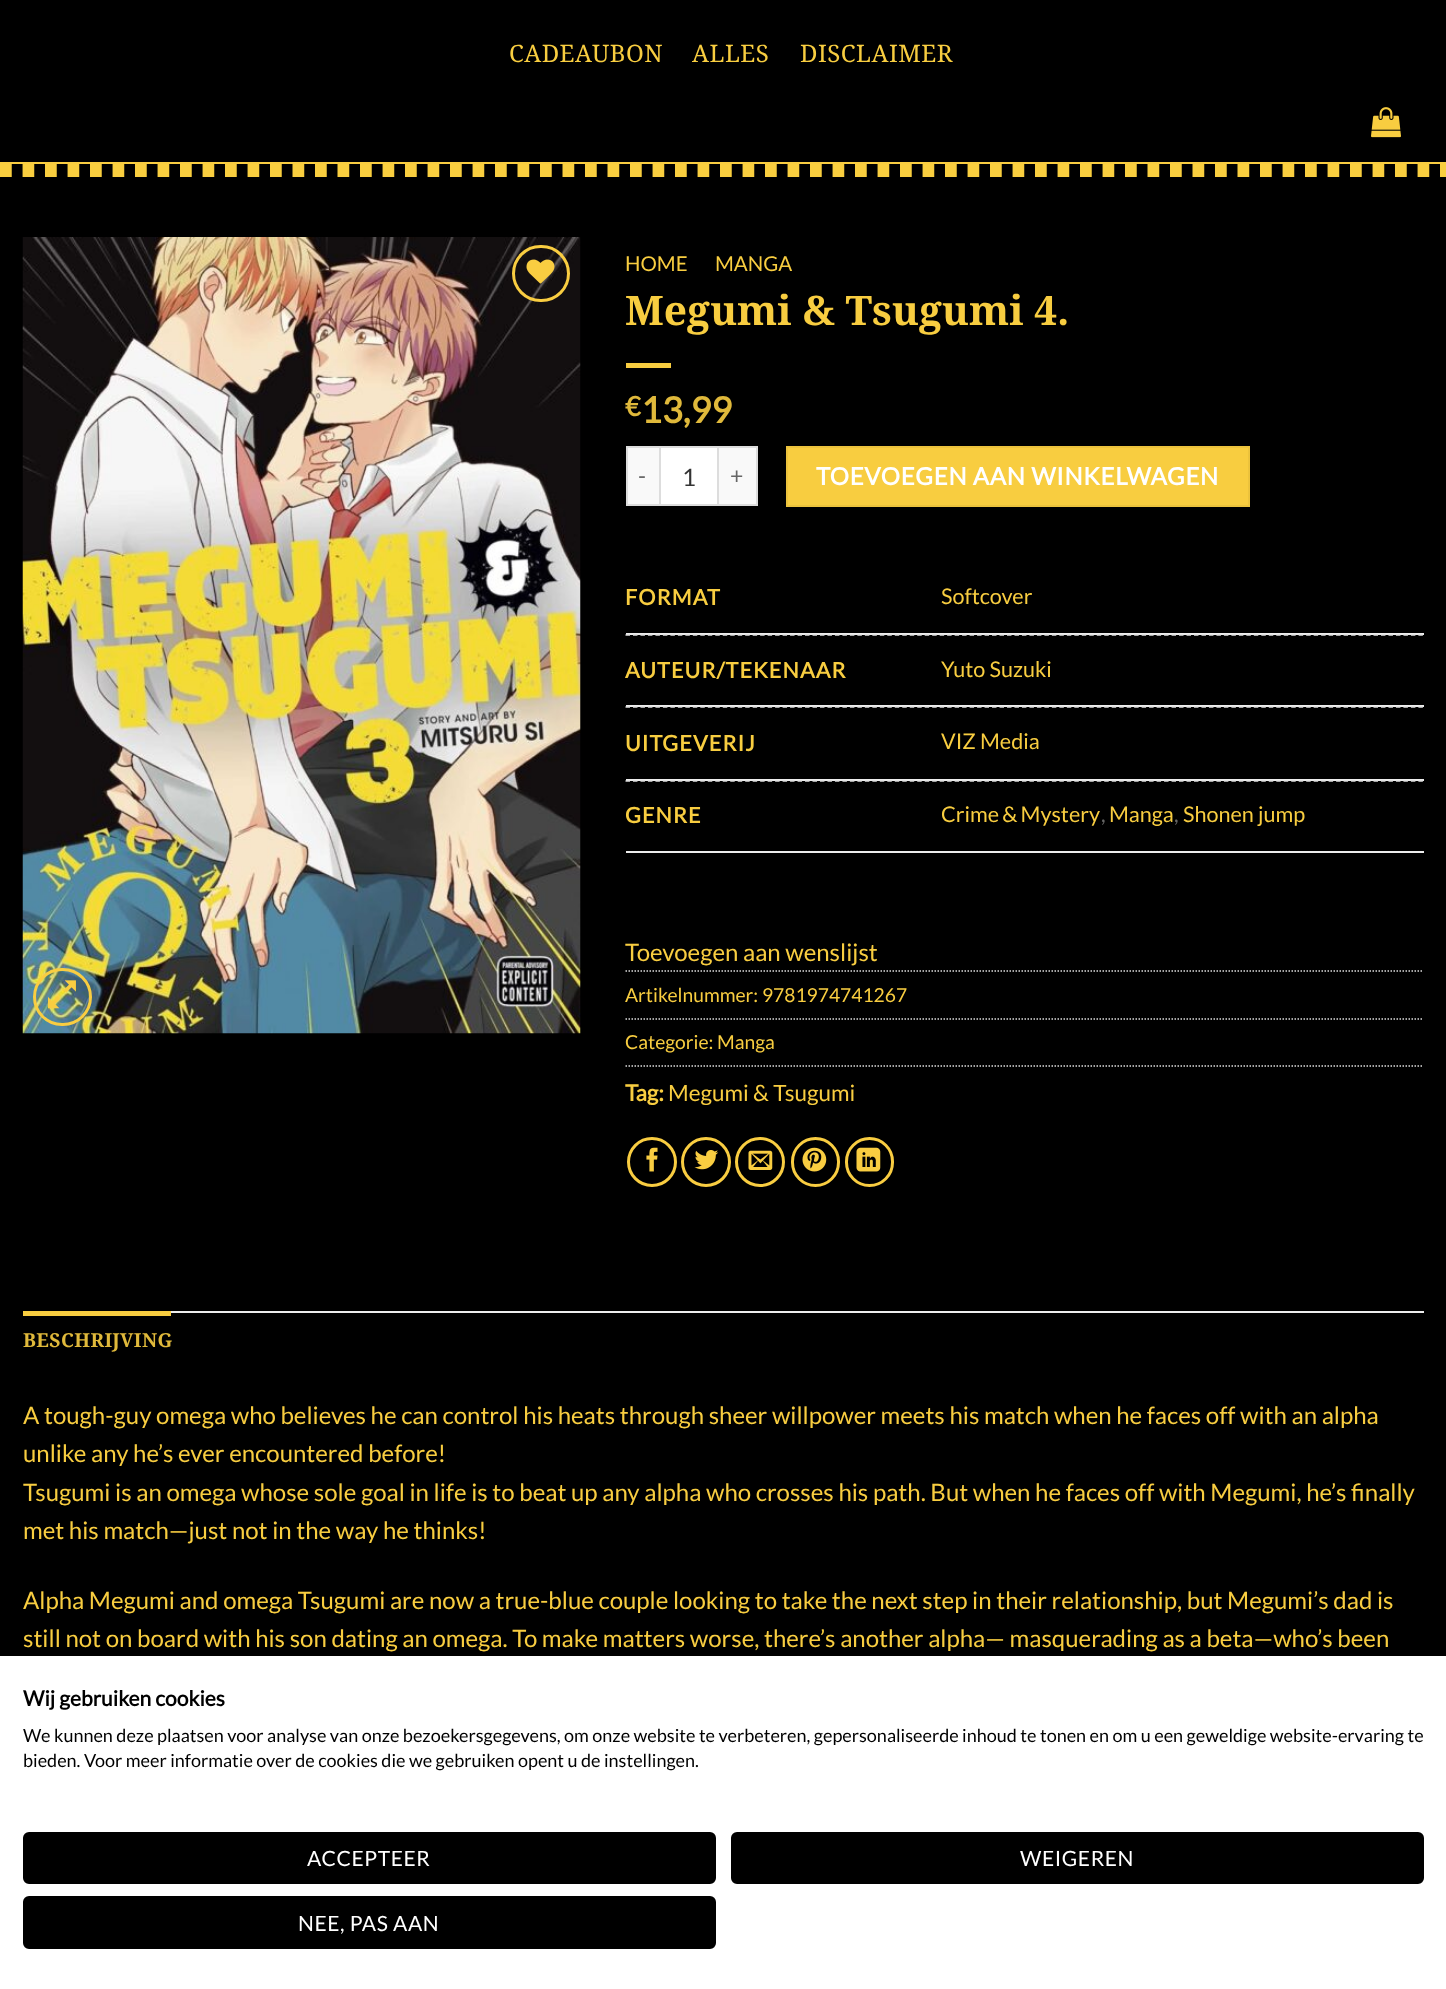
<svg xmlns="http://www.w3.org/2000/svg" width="1446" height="1989">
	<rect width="100%" height="100%" fill="#000000" />
	<g font-family="Droid Serif" font-size="24" letter-spacing="0.5" fill="#F8CD40">
		<text x="509" y="62">CADEAUBON</text>
		<text x="692" y="62">ALLES</text>
		<text x="800" y="62">DISCLAIMER</text>
	</g>
	<image x="1371" y="107" width="30" height="31" href="assets/img1.png" />
	<image x="0" y="164" width="1446" height="13" href="assets/img2.png" />
	<rect x="0" y="162" width="1446" height="2" fill="#F9CD41" />
	<image x="22" y="237" width="559" height="797" href="assets/img3.png" />
	<rect x="513.5" y="246.5" width="55" height="54" rx="27" fill="none" stroke="#F9CD41" stroke-width="3" />
	<image x="526" y="259" width="29" height="25" href="assets/img4.png" />
	<rect x="34.5" y="969.5" width="56" height="55" rx="27.5" fill="none" stroke="#F9CD41" stroke-width="3" />
	<image x="48" y="980" width="28" height="29" href="assets/img5.png" />
	<g font-family="Lato" font-size="20.5" fill="#F8CD40">
		<text x="625" y="271">HOME</text>
		<text x="715" y="271">MANGA</text>
	</g>
	<text x="625" y="325" font-family="Droid Serif" font-size="40.75" font-weight="700" fill="#F8CD40">Megumi &amp; Tsugumi 4.</text>
	<rect x="626" y="363" width="45" height="5" fill="#F8CD40" />
	<text x="625" y="416" font-family="Lato" font-size="27" font-weight="700" fill="#E0B93B">€</text>
	<text x="641" y="423" font-family="Lato" font-size="36" font-weight="700" fill="#E0B93B">13,99</text>
	<rect x="628" y="448" width="31" height="56" fill="#F9F9F9" />
	<rect x="626" y="446" width="33" height="2" fill="#DDDDDD" />
	<rect x="626" y="504" width="33" height="2" fill="#DDDDDD" />
	<rect x="626" y="446" width="2" height="60" fill="#DDDDDD" />
	<text x="638" y="484" font-family="Lato" font-size="23" letter-spacing="1" fill="#666666">-</text>
	<rect x="660" y="447" width="58" height="58" fill="#FFFFFF" stroke="#DDDDDD" stroke-width="2" />
	<text x="682" y="486" font-family="Lato" font-size="24" fill="#333333">1</text>
	<rect x="719" y="448" width="37" height="56" fill="#F9F9F9" />
	<rect x="719" y="446" width="39" height="2" fill="#DDDDDD" />
	<rect x="756" y="446" width="2" height="60" fill="#DDDDDD" />
	<rect x="719" y="504" width="39" height="2" fill="#DDDDDD" />
	<text x="730" y="484" font-family="Lato" font-size="23" letter-spacing="1" fill="#666666">+</text>
	<rect x="787" y="447" width="462" height="59" fill="#F8CD40" stroke="#ECC33D" stroke-width="2" />
	<text x="816" y="485" font-family="Lato" font-size="24" font-weight="700" letter-spacing="0.75" fill="#FFFFFF">TOEVOEGEN AAN WINKELWAGEN</text>
	<rect x="626" y="633" width="798" height="2" fill="#ECECEC" />
	<text x="625" y="605" font-family="Lato" font-size="21.6" font-weight="700" letter-spacing="1.1" fill="#F8CD40">FORMAT</text>
	<text x="941" y="604" font-family="Lato" font-size="21.6" fill="#F8CD40">Softcover</text>
	<path d="M625.5 635H1423.5" fill="none" stroke="#DDDDDD" stroke-width="1.5" stroke-dasharray="4.5 2.98" />
	<rect x="626" y="705" width="798" height="2" fill="#ECECEC" />
	<text x="625" y="678" font-family="Lato" font-size="21.6" font-weight="700" letter-spacing="1.1" fill="#F8CD40">AUTEUR/TEKENAAR</text>
	<text x="941" y="677" font-family="Lato" font-size="21.6" fill="#F8CD40">Yuto Suzuki</text>
	<path d="M625.5 707H1423.5" fill="none" stroke="#DDDDDD" stroke-width="1.5" stroke-dasharray="4.5 2.98" />
	<rect x="626" y="779" width="798" height="2" fill="#ECECEC" />
	<text x="625" y="751" font-family="Lato" font-size="21.6" font-weight="700" letter-spacing="1.1" fill="#F8CD40">UITGEVERIJ</text>
	<text x="941" y="749" font-family="Lato" font-size="21.6" fill="#F8CD40">VIZ Media</text>
	<path d="M625.5 781H1423.5" fill="none" stroke="#DDDDDD" stroke-width="1.5" stroke-dasharray="4.5 2.98" />
	<rect x="626" y="851" width="798" height="2" fill="#ECECEC" />
	<text x="625" y="823" font-family="Lato" font-size="21.6" font-weight="700" letter-spacing="1.1" fill="#F8CD40">GENRE</text>
	<text x="941" y="822" word-spacing="-1" font-family="Lato" font-size="21.6" fill="#F8CD40">Crime &amp; Mystery</text>
	<text x="1101" y="822" font-family="Lato" font-size="21.6" fill="#666666">,</text>
	<text x="1109" y="822" font-family="Lato" font-size="21.6" fill="#F8CD40">Manga</text>
	<text x="1174" y="822" font-family="Lato" font-size="21.6" fill="#666666">,</text>
	<text x="1183" y="822" font-family="Lato" font-size="21.6" fill="#F8CD40">Shonen jump</text>
	<text x="625" y="961" font-family="Lato" font-size="24" fill="#F8CD40">Toevoegen aan wenslijst</text>
	<path d="M625.5 971H1423.5" fill="none" stroke="#DDDDDD" stroke-width="1.5" stroke-dasharray="1.5 1.5" />
	<text x="625" y="1002" font-family="Lato" font-size="19.25" fill="#F8CD40">Artikelnummer: 9781974741267</text>
	<path d="M625.5 1019H1423.5" fill="none" stroke="#DDDDDD" stroke-width="1.5" stroke-dasharray="1.5 1.5" />
	<text x="625" y="1049" font-family="Lato" font-size="19.25" fill="#F8CD40">Categorie: Manga</text>
	<path d="M625.5 1066H1423.5" fill="none" stroke="#DDDDDD" stroke-width="1.5" stroke-dasharray="1.5 1.5" />
	<text x="625" y="1101" font-family="Lato" font-size="22.5" font-weight="700" fill="#F8CD40">Tag:</text>
	<text x="668" y="1101" font-family="Lato" font-size="22.5" fill="#F8CD40">Megumi &amp; Tsugumi</text>
	<circle cx="652" cy="1162" r="23.5" fill="none" stroke="#F9CD41" stroke-width="3" />
	<image x="646" y="1147" width="12" height="25" href="assets/img6.png" />
	<circle cx="706" cy="1162" r="23.5" fill="none" stroke="#F9CD41" stroke-width="3" />
	<image x="694" y="1150" width="25" height="20" href="assets/img7.png" />
	<circle cx="760" cy="1162" r="23.5" fill="none" stroke="#F9CD41" stroke-width="3" />
	<image x="748" y="1150" width="25" height="20" href="assets/img8.png" />
	<rect x="792.5" y="1138.5" width="46" height="47" rx="23" fill="none" stroke="#F9CD41" stroke-width="3" />
	<image x="802" y="1147" width="25" height="25" href="assets/img9.png" />
	<rect x="846.5" y="1138.5" width="46" height="47" rx="23" fill="none" stroke="#F9CD41" stroke-width="3" />
	<image x="856" y="1147" width="25" height="25" href="assets/img10.png" />
	<rect x="171" y="1311" width="1253" height="2" fill="#ECECEC" />
	<rect x="23" y="1311" width="148" height="5" fill="#F8CD40" />
	<text x="23" y="1347" font-family="Droid Serif" font-size="19.25" font-weight="700" letter-spacing="0.4" fill="#E0B93B">BESCHRIJVING</text>
	<g font-family="Lato" font-size="24" fill="#F8CD40">
		<text x="23" y="1424">A tough-guy omega who believes he can control his heats through sheer willpower meets his match when he faces off with an alpha</text>
		<text x="23" y="1462">unlike any he’s ever encountered before!</text>
		<text x="23" y="1501">Tsugumi is an omega whose sole goal in life is to beat up any alpha who crosses his path. But when he faces off with Megumi, he’s finally</text>
		<text x="23" y="1539">met his match—just not in the way he thinks!</text>
		<text x="23" y="1609">Alpha Megumi and omega Tsugumi are now a true-blue couple looking to take the next step in their relationship, but Megumi’s dad is</text>
		<text x="23" y="1647">still not on board with his son dating an omega. To make matters worse, there’s another alpha— masquerading as a beta—who’s been</text>
	</g>
	<rect x="0" y="1656" width="1446" height="333" fill="#FFFFFF" />
	<text x="23" y="1706" font-family="Lato" font-size="21" font-weight="700" fill="#000000">Wij gebruiken cookies</text>
	<g font-family="Lato" font-size="18" fill="#000000">
		<text x="23" y="1742">We kunnen deze plaatsen voor analyse van onze bezoekersgegevens, om onze website te verbeteren, gepersonaliseerde inhoud te tonen en om u een geweldige website-ervaring te</text>
		<text x="23" y="1767">bieden. Voor meer informatie over de cookies die we gebruiken opent u de instellingen.</text>
	</g>
	<rect x="24" y="1833" width="691" height="50" rx="5" fill="#000000" stroke="#000000" stroke-width="2" />
	<text x="307" y="1866" font-family="Lato" font-size="21" letter-spacing="0.6" fill="#FFFFFF">ACCEPTEER</text>
	<rect x="732" y="1833" width="691" height="50" rx="5" fill="#000000" stroke="#000000" stroke-width="2" />
	<text x="1020" y="1866" font-family="Lato" font-size="21" letter-spacing="0.6" fill="#FFFFFF">WEIGEREN</text>
	<rect x="24" y="1897" width="691" height="51" rx="5" fill="#000000" stroke="#000000" stroke-width="2" />
	<text x="298" y="1931" font-family="Lato" font-size="21" letter-spacing="0.6" fill="#FFFFFF">NEE, PAS AAN</text>
</svg>
